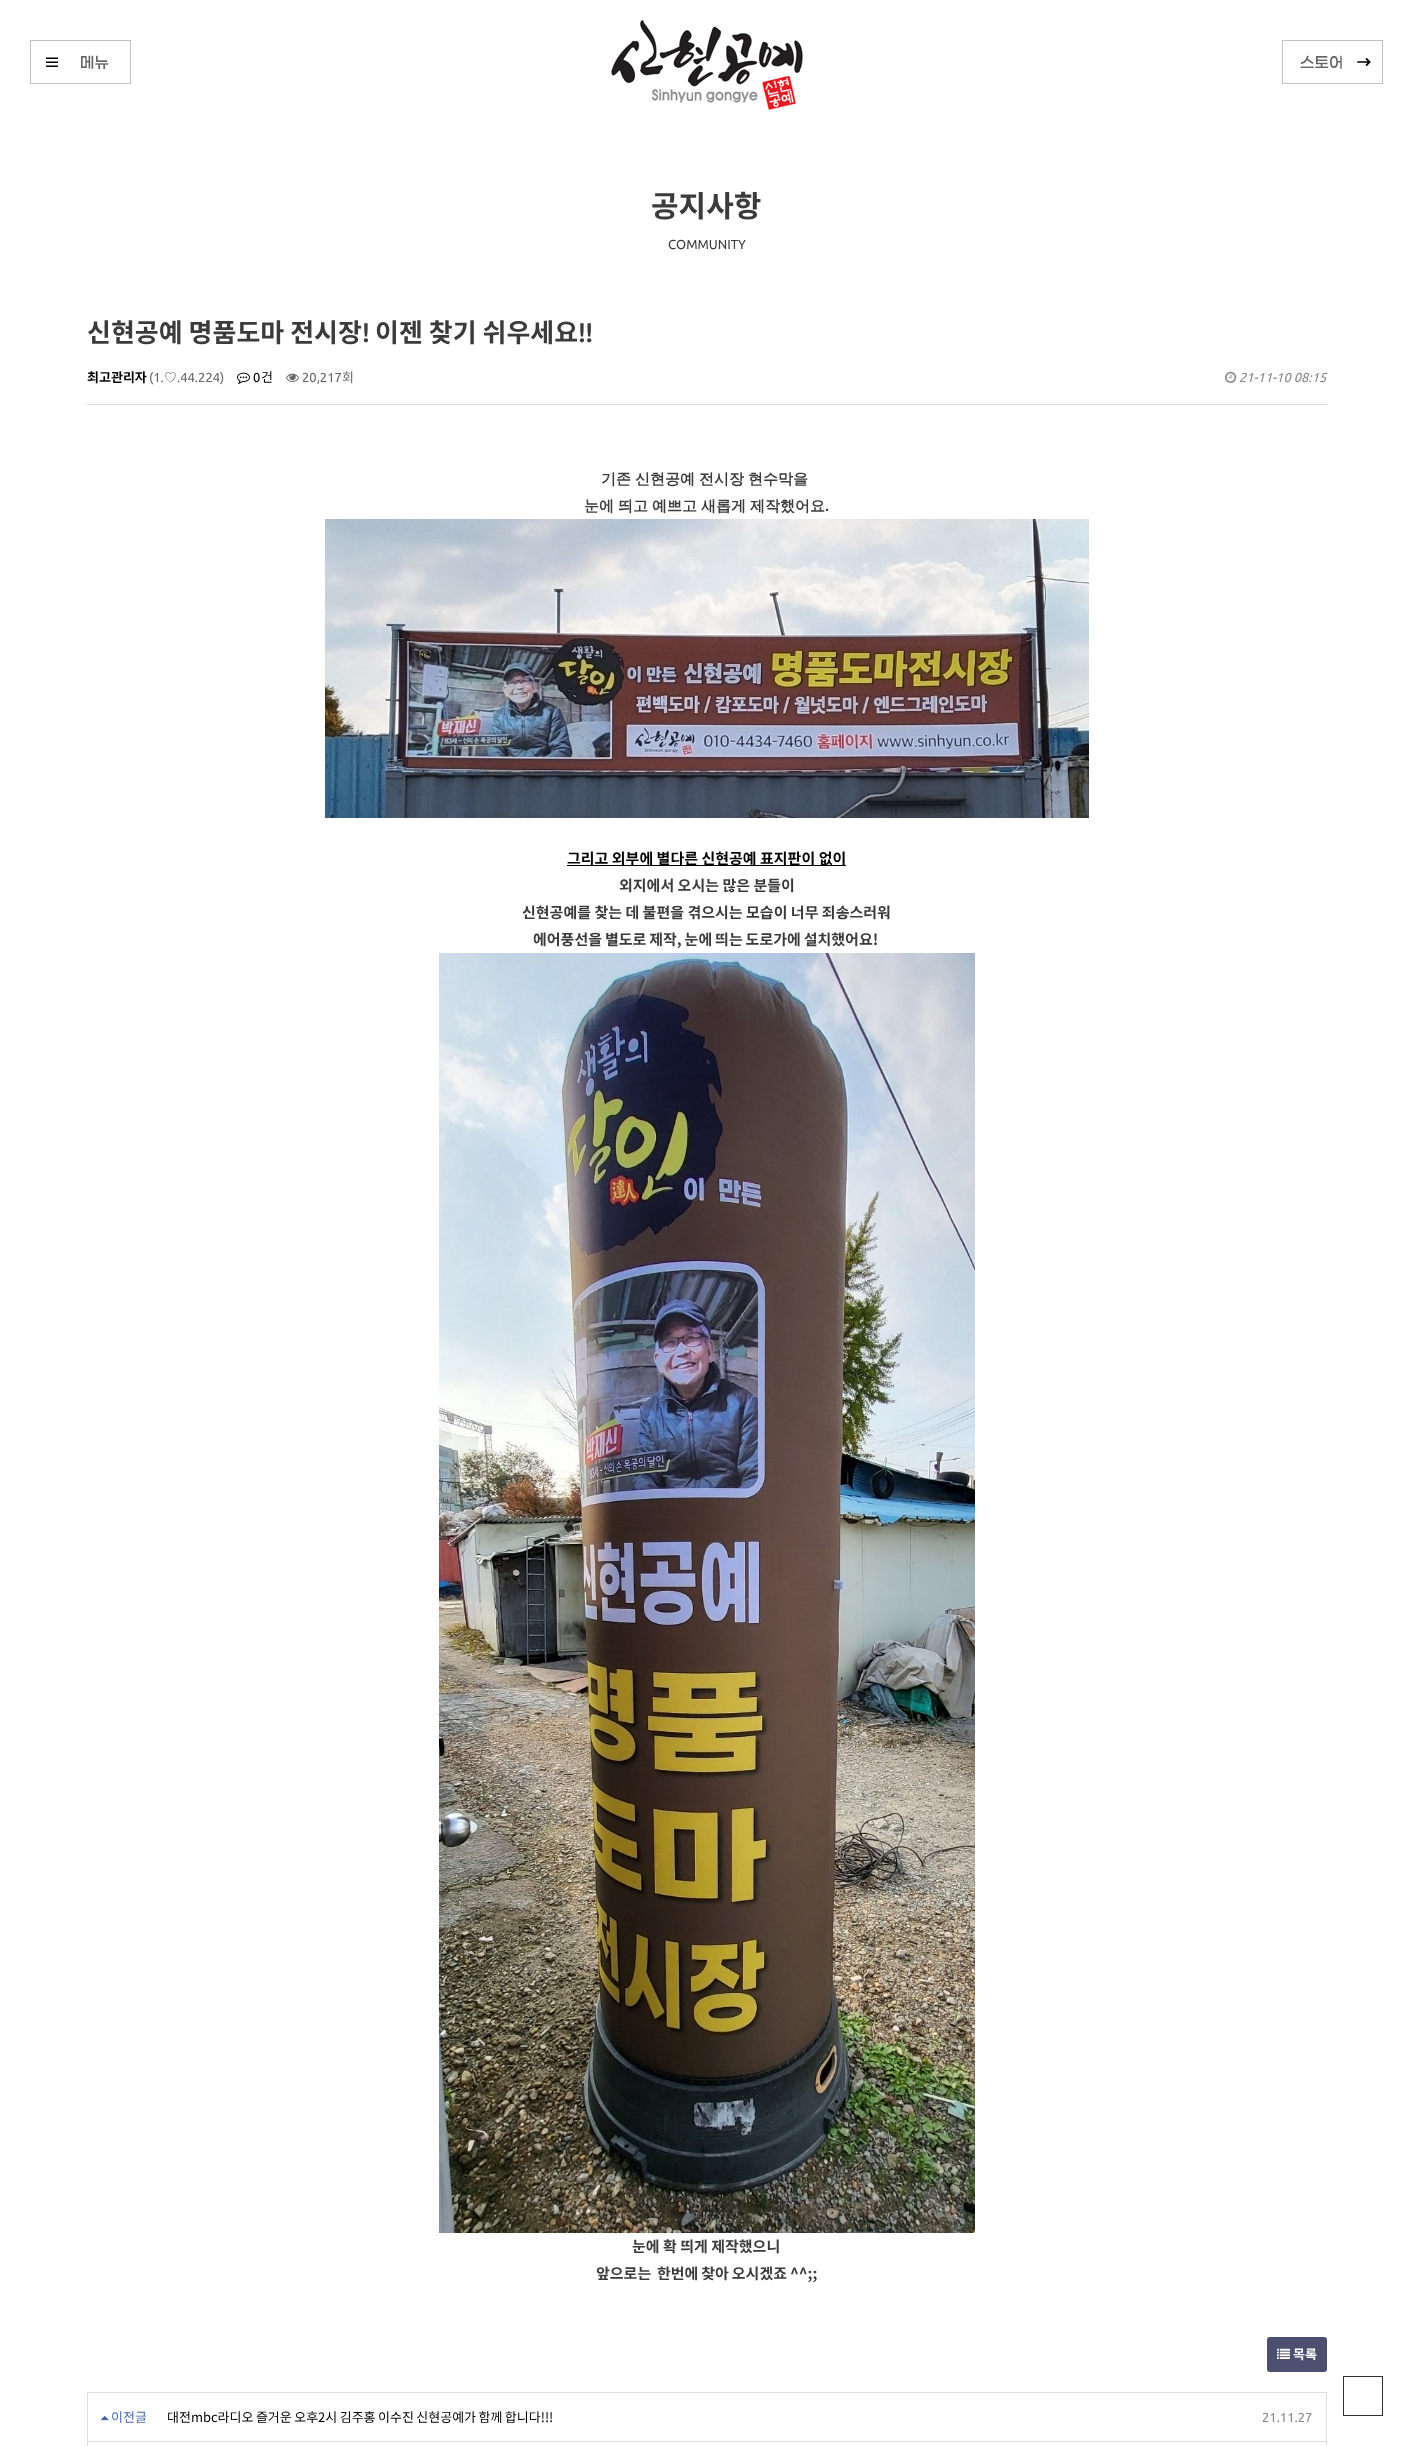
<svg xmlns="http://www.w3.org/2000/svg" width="1413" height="2446">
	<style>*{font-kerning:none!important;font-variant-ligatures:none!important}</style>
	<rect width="100%" height="100%" fill="#FFFFFF" />
	<image x="30" y="40" width="101" height="44" href="assets/img1.png" />
	<image x="611" y="20" width="192" height="90" href="assets/img2.png" />
	<image x="1282" y="40" width="101" height="44" href="assets/img3.png" />
	<text x="651" y="217" font-family="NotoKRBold" font-size="30" font-weight="700" fill="#3B3B3B">공지사항</text>
	<text x="668" y="249" font-family="Ubuntu" font-size="13" fill="#3B3B3B">COMMUNITY</text>
	<text x="87" y="342" font-family="NotoKRBold" font-size="26" font-weight="700" fill="#3B3B3B">신현공예 명품도마 전시장</text>
	<text x="362" y="342" font-family="Ubuntu" font-size="26" font-weight="700" fill="#3B3B3B">!</text>
	<text x="375" y="342" font-family="NotoKRBold" font-size="26" font-weight="700" fill="#3B3B3B">이젠 찾기 쉬우세요</text>
	<text x="578" y="342" font-family="Ubuntu" font-size="26" font-weight="700" fill="#3B3B3B">!!</text>
	<rect x="87" y="404" width="1240" height="1" fill="#DDDDDD" />
	<text x="87" y="382" font-family="NotoKRBold" font-size="13" font-weight="700" fill="#000000">최고관리자</text>
	<text x="149" y="382" font-family="Ubuntu" font-size="13" fill="#666666">(1.</text>
	<text x="164" y="382" font-family="WenQuanYi Zen Hei" font-size="13" font-weight="500" fill="#666666">♡</text>
	<text x="177" y="382" font-family="Ubuntu" font-size="13" fill="#666666">.44.224)</text>
	<image x="237" y="372" width="13" height="12" href="assets/img4.png" />
	<text x="253" y="382" font-family="Ubuntu" font-size="13" fill="#000000">0</text>
	<text x="261" y="382" font-family="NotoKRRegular" font-size="13" fill="#000000">건</text>
	<image x="286" y="373" width="13" height="9" href="assets/img5.png" />
	<text x="302" y="382" font-family="Ubuntu" font-size="13" fill="#666666">20,217</text>
	<text x="342" y="382" font-family="NotoKRRegular" font-size="13" fill="#666666">회</text>
	<image x="1225" y="371" width="12" height="12" href="assets/img6.png" />
	<text x="1239" y="382" font-family="Ubuntu" font-size="13" font-style="italic" fill="#888888">21-11-10 08:15</text>
	<g font-family="WenQuanYi Zen Hei" font-size="15" font-weight="700" fill="#3B3B3B">
		<text x="601" y="484" word-spacing="-0.5">기존 신현공예 전시장 현수막을</text>
		<text x="584" y="511" word-spacing="-0.5">눈에 띄고 예쁘고 새롭게 제작했어요</text>
	</g>
	<text x="825" y="511" font-family="Liberation Sans" font-size="15" font-weight="700" fill="#3B3B3B">.</text>
	<image x="325" y="519" width="764" height="299" href="assets/img7.png" />
	<rect x="567" y="865" width="279" height="1" fill="#000000" />
	<text x="567" y="864" font-family="NotoKRBold" font-size="15" font-weight="700" fill="#000000">그리고 외부에 별다른 신현공예 표지판이 없이</text>
	<g font-family="NotoKRBold" font-size="15" font-weight="700" fill="#3B3B3B">
		<text x="619" y="891">외지에서 오시는 많은 분들이</text>
		<text x="522" y="918">신현공예를 찾는 데 불편을 겪으시는 모습이 너무 죄송스러워</text>
		<text x="533" y="945" word-spacing="-0.5">에어풍선을 별도로 제작, 눈에 띄는 도로가에 설치했어요!</text>
	</g>
	<image x="439" y="953" width="536" height="1280" href="assets/img8.png" />
	<g font-family="NotoKRBold" font-size="15" font-weight="700" fill="#3B3B3B">
		<text x="632" y="2252">눈에 확 띄게 제작했으니</text>
		<text x="596" y="2279" word-spacing="-0.5" xml:space="preserve">앞으로는  한번에 찾아 오시겠죠 ^^;;</text>
	</g>
	<rect x="1267" y="2337" width="60" height="35" rx="3" fill="#4C4F6F" />
	<image x="1277" y="2348" width="13" height="11" href="assets/img9.png" />
	<text x="1293" y="2359" font-family="NotoKRBold" font-size="13" font-weight="700" fill="#FFFFFF">목록</text>
	<rect x="87" y="2392" width="1240" height="1" fill="#DDDDDD" />
	<rect x="1326" y="2392" width="1" height="49" fill="#DDDDDD" />
	<rect x="87" y="2392" width="1" height="49" fill="#DDDDDD" />
	<image x="101" y="2416" width="8" height="5" href="assets/img10.png" />
	<text x="111" y="2422" font-family="NotoKRRegular" font-size="13" fill="#4567B5">이전글</text>
	<text x="167" y="2422" word-spacing="-0.5" font-family="NotoKRRegular" font-size="13" fill="#000000">대전mbc라디오 즐거운 오후2시 김주홍 이수진 신현공예가 함께 합니다!!!</text>
	<text x="1262" y="2422" font-family="Ubuntu" font-size="13" fill="#888888">21.11.27</text>
	<rect x="87" y="2441" width="1240" height="1" fill="#DDDDDD" />
	<rect x="1326" y="2441" width="1" height="5" fill="#DDDDDD" />
	<rect x="87" y="2441" width="1" height="5" fill="#DDDDDD" />
	<rect x="1343.5" y="2376.5" width="39" height="39" fill="none" stroke="#333333" />
</svg>
